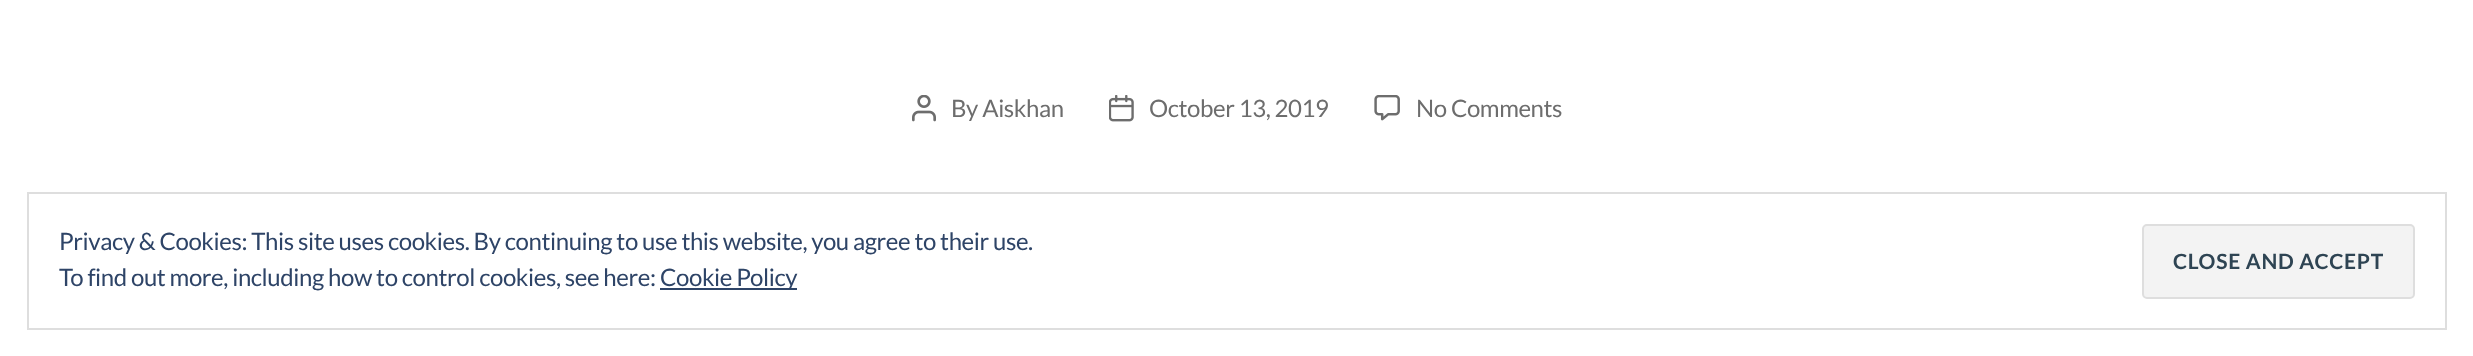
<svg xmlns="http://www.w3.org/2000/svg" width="2473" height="356">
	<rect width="100%" height="100%" fill="#FFFFFF" />
	<image x="912" y="95" width="24" height="27" href="assets/img1.png" />
	<text x="951" y="117" font-family="Lato" font-size="24" letter-spacing="-0.41" fill="#6D6D6D">By Aiskhan</text>
	<image x="1109" y="95" width="25" height="27" href="assets/img2.png" />
	<text x="1149" y="117" font-family="Lato" font-size="24" letter-spacing="-0.41" fill="#6D6D6D">October 13, 2019</text>
	<image x="1374" y="95" width="26" height="26" href="assets/img3.png" />
	<text x="1416" y="117" font-family="Lato" font-size="24" letter-spacing="-0.41" fill="#6D6D6D">No Comments</text>
	<rect x="28" y="193" width="2418" height="136" fill="none" stroke="#DEDEDE" stroke-width="2" />
	<text x="59" y="250" font-family="Lato" font-size="24" letter-spacing="-0.41" fill="#2E4467">Privacy &amp; Cookies: This site uses cookies. By continuing to use this website, you agree to their use.</text>
	<rect x="2143" y="225" width="271" height="73" rx="4" fill="#F3F3F3" stroke="#DEDEDE" stroke-width="2" />
	<text x="2173" y="269" font-family="Lato" font-size="21" font-weight="700" letter-spacing="0.75" fill="#2E4453">CLOSE AND ACCEPT</text>
	<text x="59" y="286" font-family="Lato" font-size="24" letter-spacing="-0.41" fill="#2E4467">To find out more, including how to control cookies, see here:</text>
	<rect x="660" y="288" width="137" height="2" fill="#2E4467" />
	<text x="660" y="286" font-family="Lato" font-size="24" letter-spacing="-0.41" fill="#2E4467">Cookie Policy</text>
</svg>
